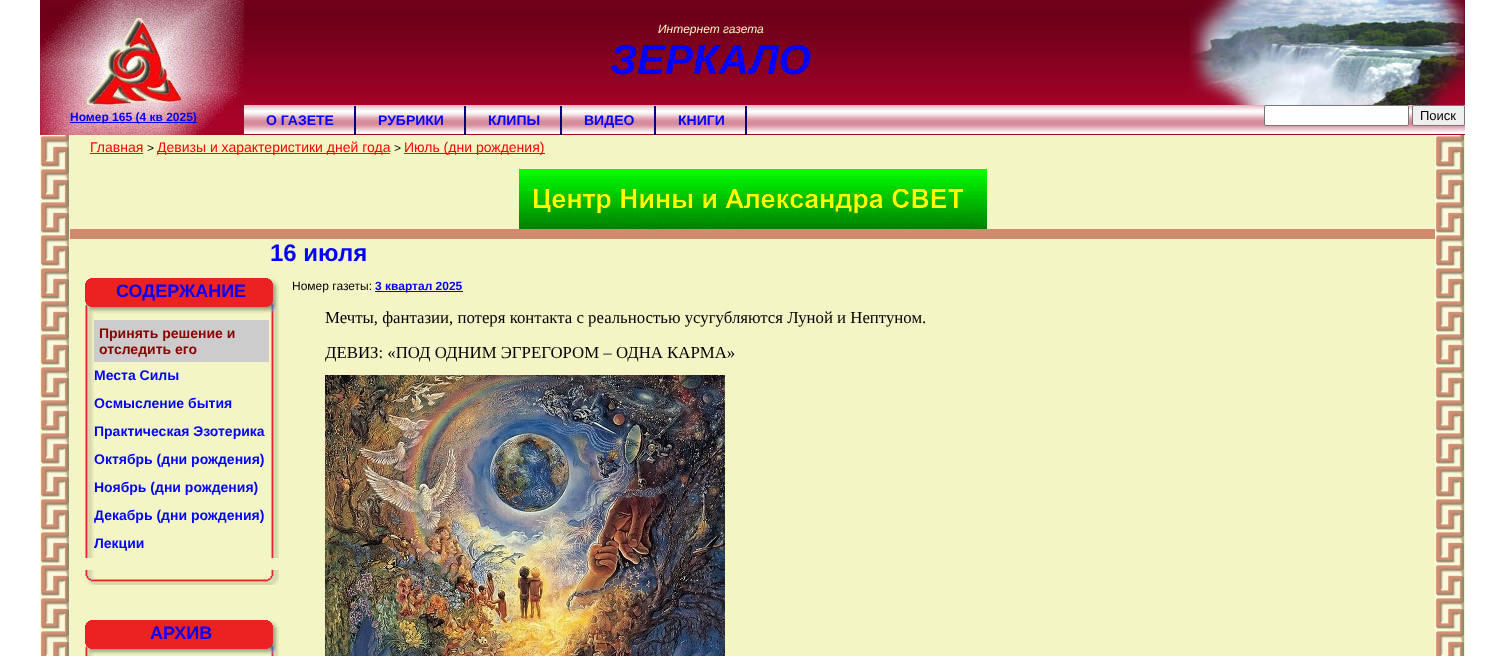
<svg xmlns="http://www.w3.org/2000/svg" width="1505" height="656">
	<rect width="100%" height="100%" fill="#F3F5C4" />
	<rect x="0" y="0" width="40" height="656" fill="#FFFFFF" />
	<image x="244" y="0" width="1221" height="135" href="assets/img1.png" />
	<image x="40" y="0" width="204" height="135" href="assets/img2.png" />
	<rect x="70" y="122" width="127" height="1" fill="#0000EE" />
	<text x="70" y="121" font-family="Liberation Sans" font-size="12" font-weight="700" fill="#0000FF">Номер 165 (4 кв 2025)</text>
	<text x="658" y="33" font-family="Liberation Sans" font-size="12" font-style="italic" fill="#F3F5C4">Интернет газета</text>
	<text x="610" y="74" font-family="Liberation Sans" font-size="42" font-weight="700" font-style="italic" fill="#0000FF">ЗЕРКАЛО</text>
	<image x="1189" y="0" width="276" height="105" href="assets/img3.png" />
	<image x="244" y="105" width="1221" height="29" href="assets/img4.png" />
	<image x="354" y="106" width="2" height="29" href="assets/img5.png" />
	<text x="266" y="125" font-family="Liberation Sans" font-size="14" font-weight="700" fill="#0000FF">О ГАЗЕТЕ</text>
	<image x="464" y="106" width="2" height="29" href="assets/img5.png" />
	<text x="378" y="125" font-family="Liberation Sans" font-size="14" font-weight="700" fill="#0000FF">РУБРИКИ</text>
	<image x="560" y="106" width="2" height="29" href="assets/img5.png" />
	<text x="488" y="125" font-family="Liberation Sans" font-size="14" font-weight="700" fill="#0000FF">КЛИПЫ</text>
	<image x="654" y="106" width="2" height="29" href="assets/img5.png" />
	<text x="584" y="125" font-family="Liberation Sans" font-size="14" font-weight="700" fill="#0000FF">ВИДЕО</text>
	<image x="745" y="106" width="2" height="29" href="assets/img5.png" />
	<text x="678" y="125" font-family="Liberation Sans" font-size="14" font-weight="700" fill="#0000FF">КНИГИ</text>
	<rect x="1264.5" y="105.5" width="144" height="20" rx="1.5" fill="#FFFFFF" stroke="#767676" />
	<rect x="1412.5" y="105.5" width="52" height="20" rx="1.5" fill="#EFEFEF" stroke="#767676" />
	<text x="1420" y="120" font-family="Liberation Sans" font-size="13" fill="#000000">Поиск</text>
	<rect x="1465" y="0" width="40" height="656" fill="#FFFFFF" />
	<image x="40" y="135" width="29" height="521" href="assets/img6.png" />
	<text x="90" y="152" font-family="Liberation Sans" font-size="14" fill="#FF0000">Главная</text>
	<rect x="90" y="153" width="53" height="1" fill="#FF0000" />
	<text x="147" y="152" font-family="Liberation Sans" font-size="12" fill="#000000">&gt;</text>
	<rect x="157" y="153" width="233" height="1" fill="#FF0000" />
	<text x="157" y="152" font-family="Liberation Sans" font-size="14" fill="#FF0000">Девизы и характеристики дней года</text>
	<text x="394" y="152" font-family="Liberation Sans" font-size="12" fill="#000000">&gt;</text>
	<rect x="404" y="153" width="141" height="1" fill="#FF0000" />
	<text x="404" y="152" font-family="Liberation Sans" font-size="14" fill="#FF0000">Июль (дни рождения)</text>
	<image x="519" y="169" width="468" height="60" href="assets/img7.png" />
	<rect x="70" y="229" width="1365" height="10" fill="#D08B6F" />
	<text x="270" y="261" font-family="Liberation Sans" font-size="24" font-weight="700" fill="#0000FF">16 июля</text>
	<image x="1435" y="135" width="29" height="521" href="assets/img6.png" />
	<image x="85" y="278" width="194" height="42" href="assets/img8.png" />
	<text x="116" y="297" font-family="Liberation Sans" font-size="18" font-weight="700" fill="#0000FF">СОДЕРЖАНИЕ</text>
	<image x="85" y="320" width="194" height="238" href="assets/img9.png" />
	<rect x="94" y="320" width="175" height="42" fill="#CCCCCC" />
	<g font-family="Liberation Sans" font-size="14" font-weight="700" fill="#880000">
		<text x="99" y="338">Принять решение и</text>
		<text x="99" y="354">отследить его</text>
	</g>
	<g font-family="Liberation Sans" font-size="14" font-weight="700" fill="#0000FF">
		<text x="94" y="380">Места Силы</text>
		<text x="94" y="408">Осмысление бытия</text>
		<text x="94" y="436">Практическая Эзотерика</text>
		<text x="94" y="464">Октябрь (дни рождения)</text>
		<text x="94" y="492">Ноябрь (дни рождения)</text>
		<text x="94" y="520">Декабрь (дни рождения)</text>
		<text x="94" y="548">Лекции</text>
	</g>
	<image x="85" y="570" width="194" height="15" href="assets/img10.png" />
	<image x="85" y="620" width="194" height="36" href="assets/img11.png" />
	<text x="150" y="639" font-family="Liberation Sans" font-size="18" font-weight="700" fill="#0000FF">АРХИВ</text>
	<text x="292" y="290" font-family="Liberation Sans" font-size="12" fill="#000000">Номер газеты:</text>
	<rect x="375" y="291" width="88" height="1" fill="#0000EE" />
	<text x="375" y="290" font-family="Liberation Sans" font-size="12" font-weight="700" fill="#0000EE">3 квартал 2025</text>
	<g font-family="Liberation Serif" font-size="16.8" fill="#000000">
		<text x="325" y="323">Мечты, фантазии, потеря контакта с реальностью усугубляются Луной и Нептуном.</text>
		<text x="325" y="358">ДЕВИЗ: «ПОД ОДНИМ ЭГРЕГОРОМ – ОДНА КАРМА»</text>
	</g>
	<image x="325" y="375" width="400" height="281" href="assets/img12.png" />
</svg>
